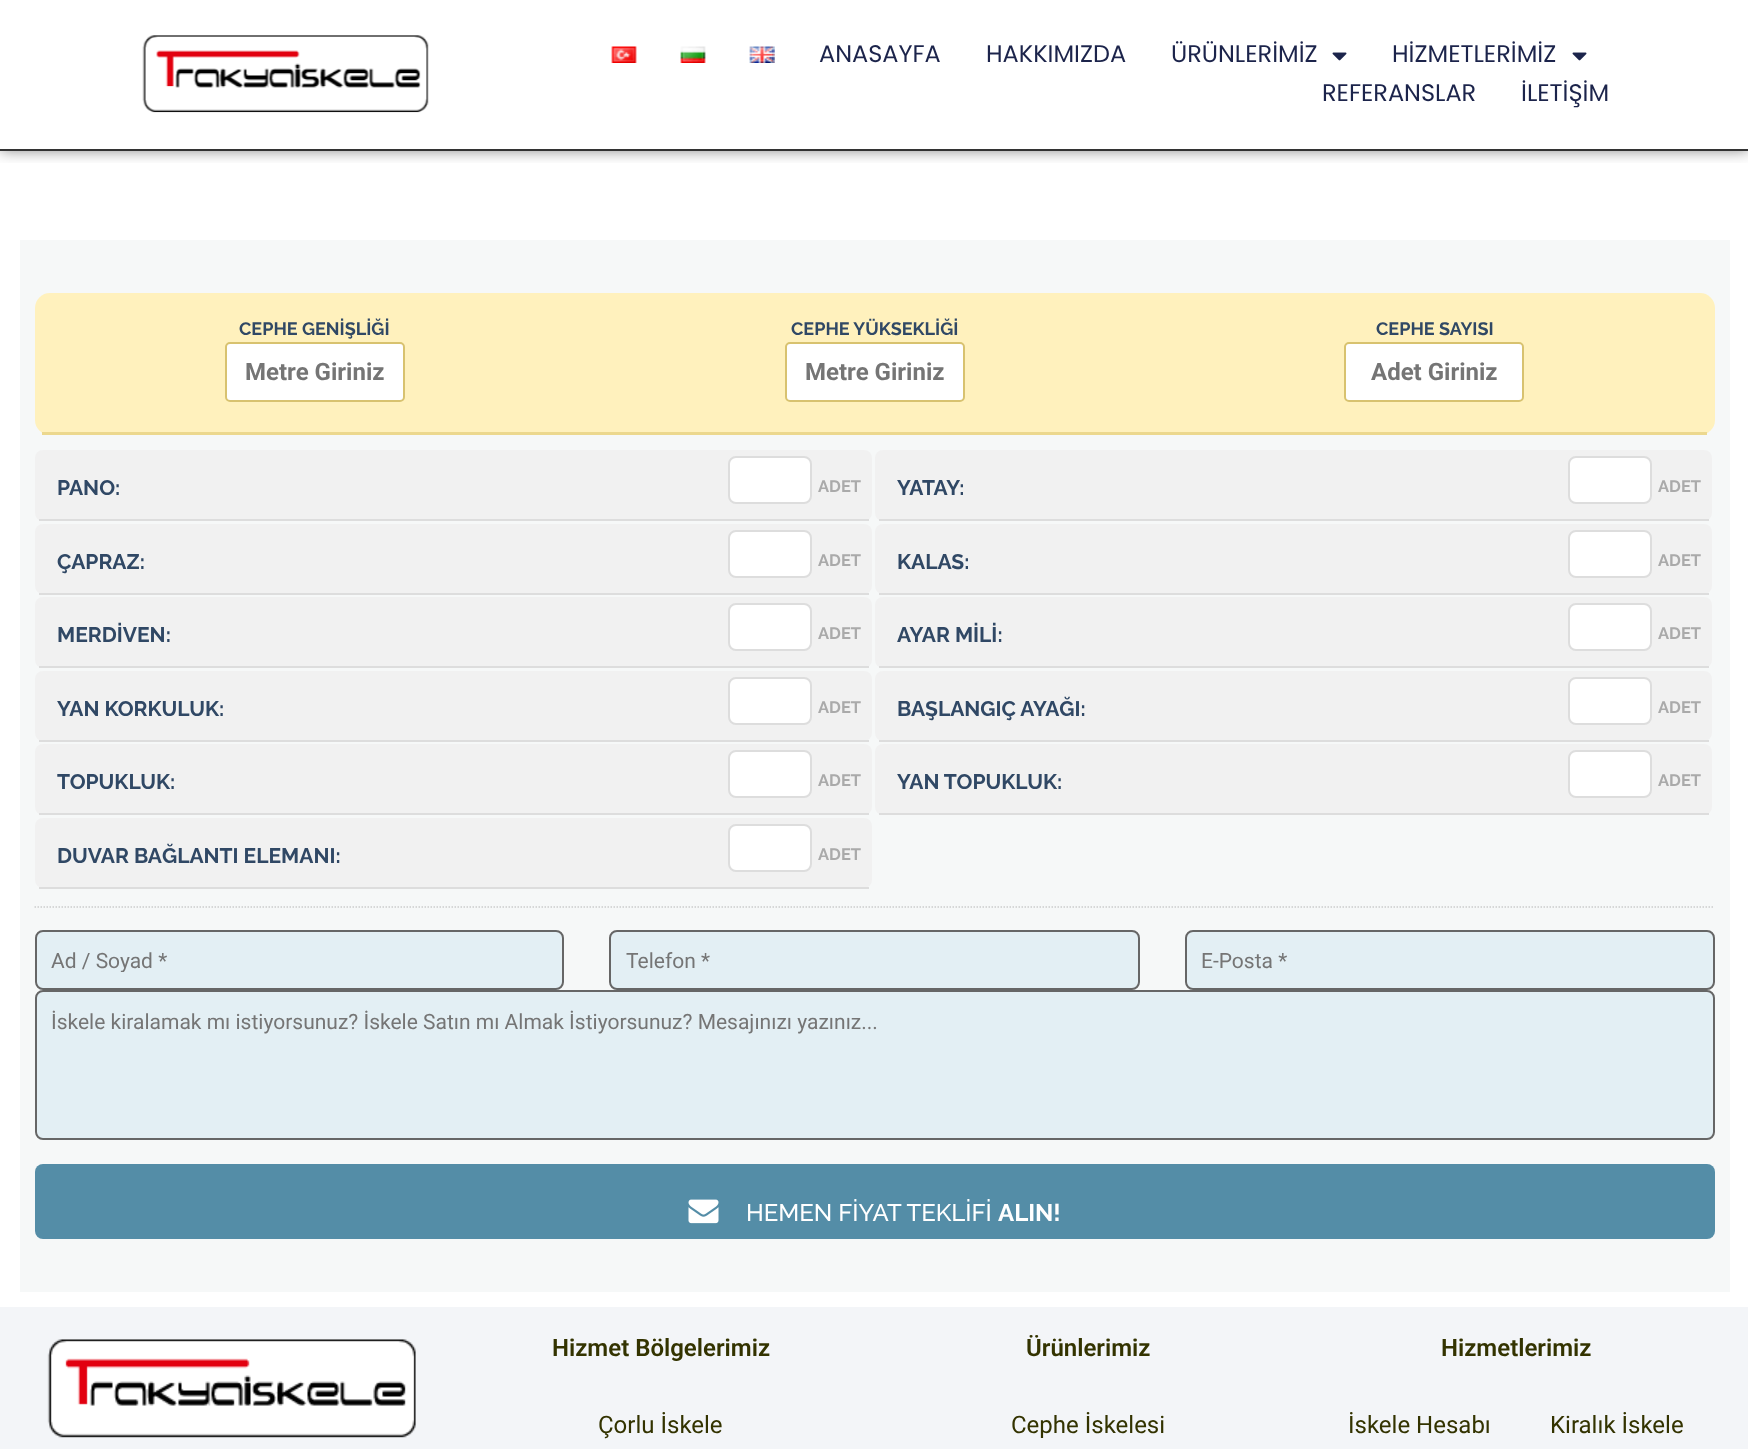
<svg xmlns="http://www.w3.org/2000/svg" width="1748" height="1449">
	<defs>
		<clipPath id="clip1"><rect x="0" y="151" width="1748" height="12" /></clipPath>
		<clipPath id="clip2"><rect x="51" y="948" width="497" height="24" /></clipPath>
	</defs>
	<rect width="100%" height="100%" fill="#FFFFFF" />
	<g clip-path="url(#clip1)">
		<rect x="0" y="0" width="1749" height="150" fill="#000000" fill-opacity="0.5" filter="blur(7.5px)" />
	</g>
	<rect x="0" y="149" width="1748" height="2" fill="#333333" />
	<image x="142" y="35" width="287" height="78" href="assets/img1.png" />
	<image x="611" y="46" width="26" height="17" href="assets/img2.png" />
	<image x="680" y="46" width="26" height="17" href="assets/img3.png" />
	<image x="749" y="46" width="26" height="17" href="assets/img4.png" />
	<g font-family="Poppins" font-size="24" fill="#1C244B">
		<text x="819" y="62">ANASAYFA</text>
		<text x="986" y="62">HAKKIMIZDA</text>
		<text x="1171" y="62">ÜRÜNLERİMİZ</text>
	</g>
	<image x="1332" y="52" width="15" height="9" href="assets/img5.png" />
	<text x="1392" y="62" font-family="Poppins" font-size="24" fill="#1C244B">HİZMETLERİMİZ</text>
	<image x="1572" y="52" width="15" height="9" href="assets/img5.png" />
	<g font-family="Poppins" font-size="24" fill="#1C244B">
		<text x="1322" y="101">REFERANSLAR</text>
		<text x="1521" y="101">İLETİŞİM</text>
	</g>
	<rect x="20" y="240" width="1710" height="1052" fill="#F6F8F8" />
	<rect x="35" y="293" width="1680" height="142" rx="15" fill="#FFF1BD" />
	<rect x="42" y="432" width="1665" height="3" fill="#ECD88E" />
	<text x="239" y="335" font-family="Raleway" font-size="18" font-weight="700" fill="#304865">CEPHE GENİŞLİĞİ</text>
	<rect x="226" y="343" width="178" height="58" rx="4" fill="#FFFFFF" stroke="#D8C26F" stroke-width="2" />
	<text x="245" y="380" font-family="Roboto" font-size="24" font-weight="700" fill="#757575">Metre Giriniz</text>
	<text x="791" y="335" font-family="Raleway" font-size="18" font-weight="700" fill="#304865">CEPHE YÜKSEKLİĞİ</text>
	<rect x="786" y="343" width="178" height="58" rx="4" fill="#FFFFFF" stroke="#D8C26F" stroke-width="2" />
	<text x="805" y="380" font-family="Roboto" font-size="24" font-weight="700" fill="#757575">Metre Giriniz</text>
	<text x="1376" y="335" font-family="Raleway" font-size="18" font-weight="700" fill="#304865">CEPHE SAYISI</text>
	<rect x="1345" y="343" width="178" height="58" rx="4" fill="#FFFFFF" stroke="#D8C26F" stroke-width="2" />
	<text x="1371" y="380" font-family="Roboto" font-size="24" font-weight="700" fill="#757575">Adet Giriniz</text>
	<rect x="35" y="450" width="837" height="71" rx="8" fill="#F1F1F1" />
	<rect x="39" y="519" width="830" height="2" fill="#DDDDDD" />
	<text x="57" y="495" font-family="Raleway" font-size="21" font-weight="700" fill="#304865">PANO:</text>
	<rect x="729" y="457" width="82" height="46" rx="7" fill="#FFFFFF" stroke="#DDDDDD" stroke-width="2" />
	<text x="818" y="492" font-family="Raleway" font-size="16.5" font-weight="700" fill="#AAAAAA">ADET</text>
	<rect x="875" y="450" width="837" height="71" rx="8" fill="#F1F1F1" />
	<rect x="879" y="519" width="830" height="2" fill="#DDDDDD" />
	<text x="897" y="495" font-family="Raleway" font-size="21" font-weight="700" fill="#304865">YATAY:</text>
	<rect x="1569" y="457" width="82" height="46" rx="7" fill="#FFFFFF" stroke="#DDDDDD" stroke-width="2" />
	<text x="1658" y="492" font-family="Raleway" font-size="16.5" font-weight="700" fill="#AAAAAA">ADET</text>
	<rect x="35" y="524" width="837" height="70" rx="8" fill="#F1F1F1" />
	<rect x="39" y="593" width="830" height="2" fill="#DDDDDD" />
	<text x="57" y="569" font-family="Raleway" font-size="21" font-weight="700" fill="#304865">ÇAPRAZ:</text>
	<rect x="729" y="531" width="82" height="46" rx="7" fill="#FFFFFF" stroke="#DDDDDD" stroke-width="2" />
	<text x="818" y="566" font-family="Raleway" font-size="16.5" font-weight="700" fill="#AAAAAA">ADET</text>
	<rect x="875" y="524" width="837" height="70" rx="8" fill="#F1F1F1" />
	<rect x="879" y="593" width="830" height="2" fill="#DDDDDD" />
	<text x="897" y="569" font-family="Raleway" font-size="21" font-weight="700" fill="#304865">KALAS:</text>
	<rect x="1569" y="531" width="82" height="46" rx="7" fill="#FFFFFF" stroke="#DDDDDD" stroke-width="2" />
	<text x="1658" y="566" font-family="Raleway" font-size="16.5" font-weight="700" fill="#AAAAAA">ADET</text>
	<rect x="35" y="597" width="837" height="71" rx="8" fill="#F1F1F1" />
	<rect x="39" y="666" width="830" height="2" fill="#DDDDDD" />
	<text x="57" y="642" font-family="Raleway" font-size="21" font-weight="700" fill="#304865">MERDİVEN:</text>
	<rect x="729" y="604" width="82" height="46" rx="7" fill="#FFFFFF" stroke="#DDDDDD" stroke-width="2" />
	<text x="818" y="639" font-family="Raleway" font-size="16.5" font-weight="700" fill="#AAAAAA">ADET</text>
	<rect x="875" y="597" width="837" height="71" rx="8" fill="#F1F1F1" />
	<rect x="879" y="666" width="830" height="2" fill="#DDDDDD" />
	<text x="897" y="642" font-family="Raleway" font-size="21" font-weight="700" fill="#304865">AYAR MİLİ:</text>
	<rect x="1569" y="604" width="82" height="46" rx="7" fill="#FFFFFF" stroke="#DDDDDD" stroke-width="2" />
	<text x="1658" y="639" font-family="Raleway" font-size="16.5" font-weight="700" fill="#AAAAAA">ADET</text>
	<rect x="35" y="671" width="837" height="70" rx="8" fill="#F1F1F1" />
	<rect x="39" y="740" width="830" height="2" fill="#DDDDDD" />
	<text x="57" y="716" font-family="Raleway" font-size="21" font-weight="700" fill="#304865">YAN KORKULUK:</text>
	<rect x="729" y="678" width="82" height="46" rx="7" fill="#FFFFFF" stroke="#DDDDDD" stroke-width="2" />
	<text x="818" y="713" font-family="Raleway" font-size="16.5" font-weight="700" fill="#AAAAAA">ADET</text>
	<rect x="875" y="671" width="837" height="70" rx="8" fill="#F1F1F1" />
	<rect x="879" y="740" width="830" height="2" fill="#DDDDDD" />
	<text x="897" y="716" font-family="Raleway" font-size="21" font-weight="700" fill="#304865">BAŞLANGIÇ AYAĞI:</text>
	<rect x="1569" y="678" width="82" height="46" rx="7" fill="#FFFFFF" stroke="#DDDDDD" stroke-width="2" />
	<text x="1658" y="713" font-family="Raleway" font-size="16.5" font-weight="700" fill="#AAAAAA">ADET</text>
	<rect x="35" y="744" width="837" height="71" rx="8" fill="#F1F1F1" />
	<rect x="39" y="813" width="830" height="2" fill="#DDDDDD" />
	<text x="57" y="789" font-family="Raleway" font-size="21" font-weight="700" fill="#304865">TOPUKLUK:</text>
	<rect x="729" y="751" width="82" height="46" rx="7" fill="#FFFFFF" stroke="#DDDDDD" stroke-width="2" />
	<text x="818" y="786" font-family="Raleway" font-size="16.5" font-weight="700" fill="#AAAAAA">ADET</text>
	<rect x="875" y="744" width="837" height="71" rx="8" fill="#F1F1F1" />
	<rect x="879" y="813" width="830" height="2" fill="#DDDDDD" />
	<text x="897" y="789" font-family="Raleway" font-size="21" font-weight="700" fill="#304865">YAN TOPUKLUK:</text>
	<rect x="1569" y="751" width="82" height="46" rx="7" fill="#FFFFFF" stroke="#DDDDDD" stroke-width="2" />
	<text x="1658" y="786" font-family="Raleway" font-size="16.5" font-weight="700" fill="#AAAAAA">ADET</text>
	<rect x="35" y="818" width="837" height="70" rx="8" fill="#F1F1F1" />
	<rect x="39" y="887" width="830" height="2" fill="#DDDDDD" />
	<text x="57" y="863" font-family="Raleway" font-size="21" font-weight="700" fill="#304865">DUVAR BAĞLANTI ELEMANI:</text>
	<rect x="729" y="825" width="82" height="46" rx="7" fill="#FFFFFF" stroke="#DDDDDD" stroke-width="2" />
	<text x="818" y="860" font-family="Raleway" font-size="16.5" font-weight="700" fill="#AAAAAA">ADET</text>
	<path d="M34.5 907H1714.5" fill="none" stroke="#CCCCCC" stroke-width="1.5" stroke-dasharray="1.5 1.5" />
	<rect x="36" y="931" width="527" height="58" rx="7" fill="#E3EFF4" stroke="#666666" stroke-width="2" />
	<g clip-path="url(#clip2)">
		<text x="51" y="968" font-family="Roboto" font-size="21" fill="#757575">Ad / Soyad *</text>
	</g>
	<rect x="610" y="931" width="529" height="58" rx="7" fill="#E3EFF4" stroke="#666666" stroke-width="2" />
	<text x="626" y="968" font-family="Roboto" font-size="21" fill="#757575">Telefon *</text>
	<rect x="1186" y="931" width="528" height="58" rx="7" fill="#E3EFF4" stroke="#666666" stroke-width="2" />
	<text x="1201" y="968" font-family="Roboto" font-size="21" fill="#757575">E-Posta *</text>
	<rect x="36" y="991" width="1678" height="148" rx="7" fill="#E3EFF4" stroke="#666666" stroke-width="2" />
	<text x="51" y="1029" font-family="Roboto" font-size="21" fill="#757575">İskele kiralamak mı istiyorsunuz? İskele Satın mı Almak İstiyorsunuz? Mesajınızı yazınız...</text>
	<rect x="35" y="1164" width="1680" height="75" rx="8" fill="#548DA7" />
	<image x="688" y="1199" width="31" height="25" href="assets/img6.png" />
	<text x="746" y="1221" font-family="Raleway" font-size="24" font-weight="500" fill="#FFFFFF">HEMEN FİYAT TEKLİFİ</text>
	<text x="998" y="1221" font-family="Raleway" font-size="24" font-weight="700" fill="#FFFFFF">ALIN!</text>
	<rect x="0" y="1307" width="1748" height="142" fill="#F3F5F8" />
	<image x="47" y="1339" width="369" height="99" href="assets/img7.png" />
	<text x="552" y="1356" font-family="Roboto" font-size="24" font-weight="600" fill="#333300">Hizmet Bölgelerimiz</text>
	<text x="598" y="1433" font-family="Roboto" font-size="24" fill="#333300">Çorlu İskele</text>
	<text x="1026" y="1356" font-family="Roboto" font-size="24" font-weight="600" fill="#333300">Ürünlerimiz</text>
	<text x="1011" y="1433" font-family="Roboto" font-size="24" fill="#333300">Cephe İskelesi</text>
	<text x="1441" y="1356" font-family="Roboto" font-size="24" font-weight="600" fill="#333300">Hizmetlerimiz</text>
	<g font-family="Roboto" font-size="24" fill="#333300">
		<text x="1348" y="1433">İskele Hesabı</text>
		<text x="1550" y="1433">Kiralık İskele</text>
	</g>
</svg>
